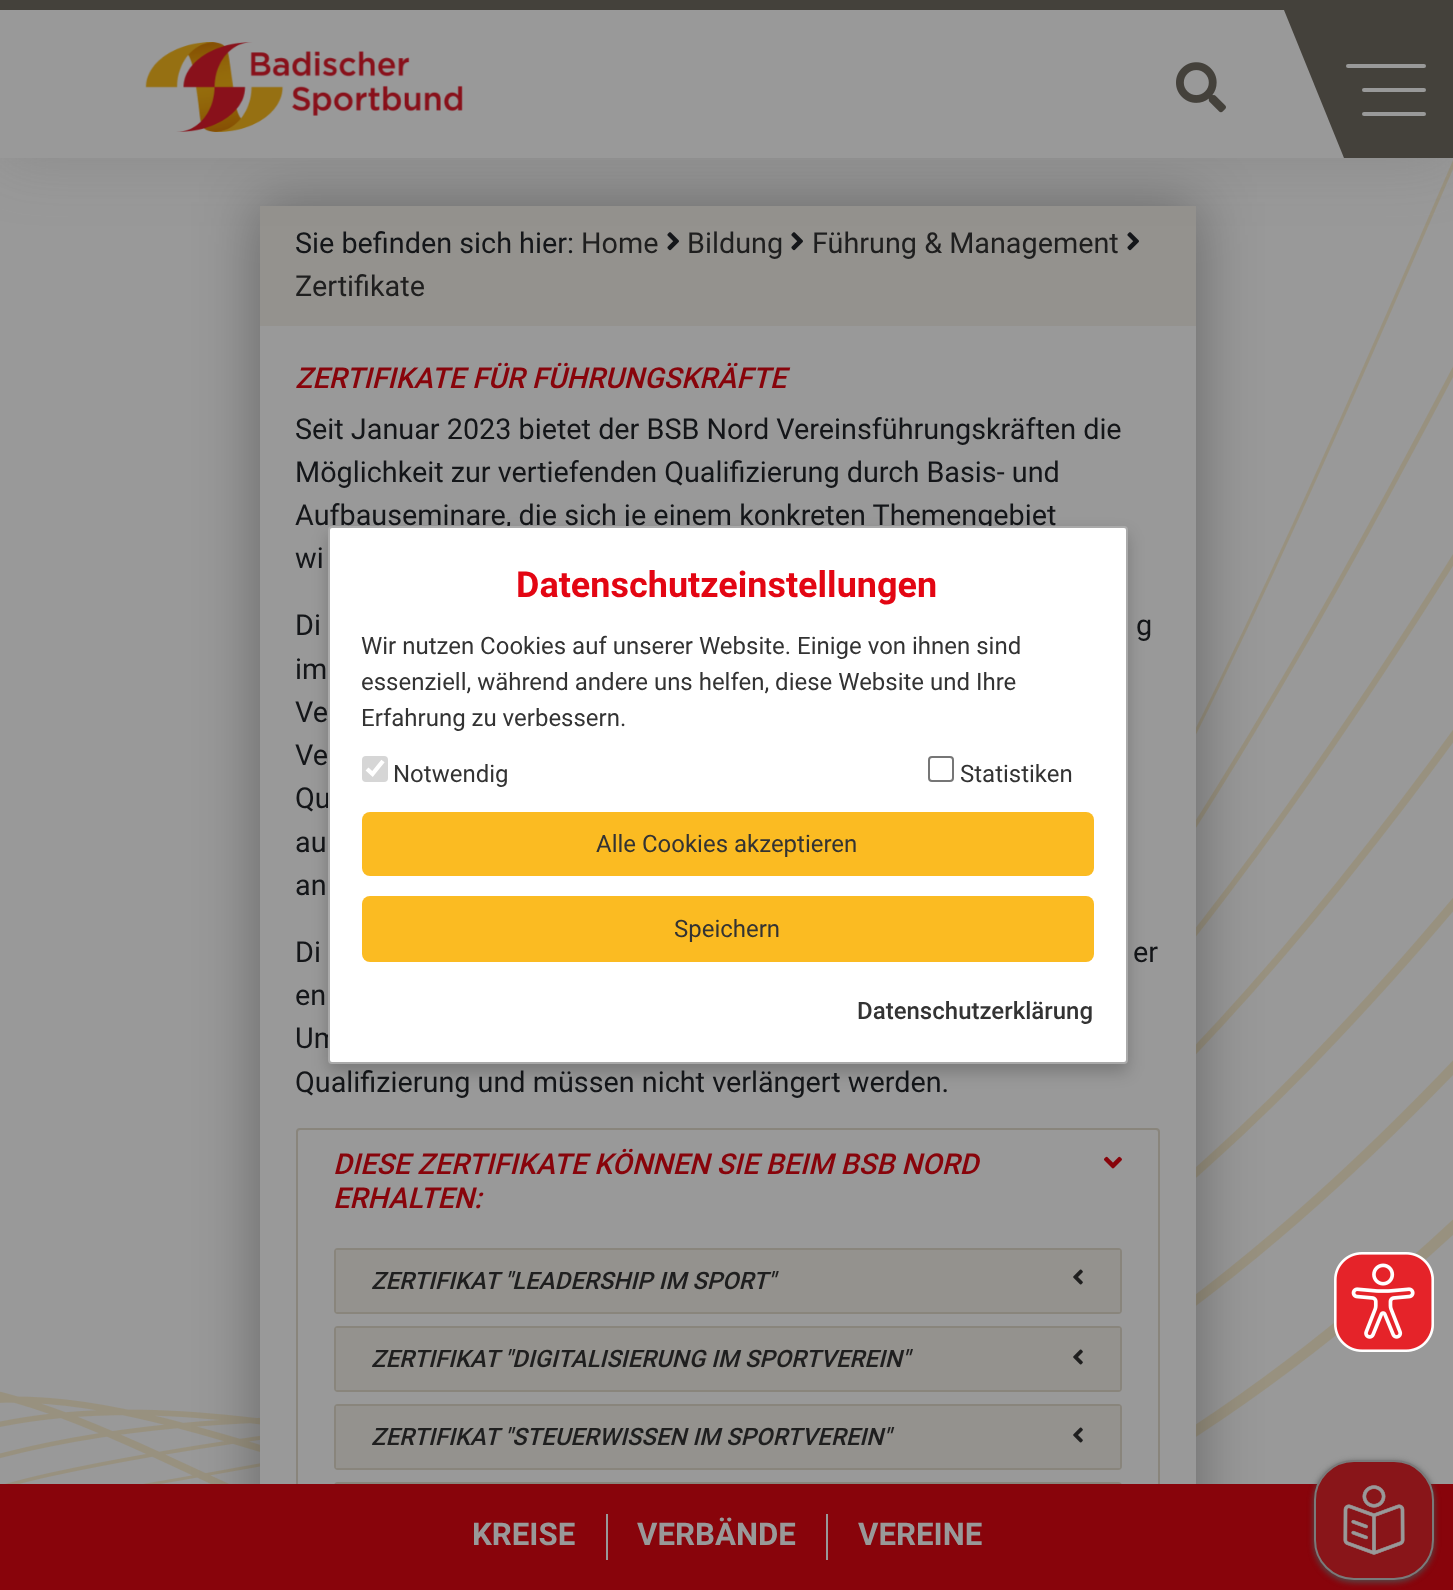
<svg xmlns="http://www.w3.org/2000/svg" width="1453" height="1590">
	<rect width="100%" height="100%" fill="#999999" />
	<image x="0" y="160" width="1453" height="1324" href="assets/img3.png" />
	<rect x="256" y="202" width="944" height="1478" fill="#000000" fill-opacity="0.3" filter="blur(30px)" />
	<rect x="260" y="206" width="936" height="120" fill="#94928E" />
	<image x="667" y="232" width="12" height="19" href="assets/img4.png" />
	<image x="791" y="232" width="12" height="19" href="assets/img4.png" />
	<image x="1127" y="232" width="12" height="19" href="assets/img4.png" />
	<rect x="0" y="0" width="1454" height="158" fill="#5E5E5E" fill-opacity="0.24" filter="blur(32px)" />
	<rect x="0" y="10" width="1344" height="148" fill="#999999" />
	<rect x="0" y="0" width="1453" height="10" fill="#44413B" />
	<image x="145" y="42" width="318" height="90" href="assets/img1.png" />
	<image x="1176" y="62" width="50" height="51" href="assets/img2.png" />
	<path d="M1284 10L1344 158V10Z" fill="#44413B" />
	<rect x="1344" y="10" width="109" height="148" fill="#44413B" />
	<rect x="1362" y="88" width="64" height="4" rx="2" fill="#999999" />
	<rect x="1346" y="64" width="80" height="4" rx="2" fill="#999999" />
	<rect x="1362" y="112" width="64" height="4" rx="2" fill="#999999" />
	<text x="295" y="253" font-family="Roboto" font-size="28.8" fill="#141619">Sie befinden sich hier:</text>
	<g font-family="Roboto" font-size="28.8" fill="#1F1F1F">
		<text x="581" y="253">Home</text>
		<text x="687" y="253">Bildung</text>
		<text x="812" y="253">Führung &amp; Management</text>
		<text x="295" y="296">Zertifikate</text>
	</g>
	<rect x="260" y="326" width="936" height="1158" fill="#999999" />
	<text x="295" y="388" font-family="Roboto" font-size="28.8" font-weight="500" font-style="italic" fill="#88040B">ZERTIFIKATE FÜR FÜHRUNGSKRÄFTE</text>
	<g font-family="Roboto" font-size="28.8" fill="#141619">
		<text x="295" y="439">Seit Januar 2023 bietet der BSB Nord Vereinsführungskräften die</text>
		<text x="295" y="482">Möglichkeit zur vertiefenden Qualifizierung durch Basis- und</text>
		<text x="295" y="525">Aufbauseminare, die sich je einem konkreten Themengebiet</text>
		<text x="295" y="568">wi</text>
		<text x="295" y="635">Di</text>
		<text x="1136" y="635">g</text>
		<text x="295" y="679">im</text>
		<text x="295" y="722">Ve</text>
		<text x="295" y="765">Ve</text>
		<text x="295" y="808">Qu</text>
		<text x="295" y="852">au</text>
		<text x="295" y="895">an</text>
		<text x="295" y="962">Di</text>
		<text x="1133" y="962">er</text>
		<text x="295" y="1005">en</text>
		<text x="295" y="1048">Um</text>
		<text x="295" y="1092">Qualifizierung und müssen nicht verlängert werden.</text>
	</g>
	<rect x="297" y="1129" width="862" height="448" rx="3" fill="none" stroke="#89857C" stroke-width="2" />
	<text x="333" y="1174" font-family="Roboto" font-size="28.8" font-weight="500" font-style="italic" fill="#88040B">DIESE ZERTIFIKATE KÖNNEN SIE BEIM BSB NORD</text>
	<image x="1104" y="1156" width="18" height="13" href="assets/img5.png" />
	<text x="333" y="1208" font-family="Roboto" font-size="28.8" font-weight="500" font-style="italic" fill="#88040B">ERHALTEN:</text>
	<rect x="335" y="1249" width="786" height="64" rx="3" fill="none" stroke="#89857C" stroke-width="2" />
	<rect x="336" y="1250" width="784" height="62" fill="#94928E" />
	<text x="371" y="1289" font-family="Roboto" font-size="24" font-weight="500" font-style="italic" fill="#1F1F1F">ZERTIFIKAT "LEADERSHIP IM SPORT"</text>
	<image x="1073" y="1269" width="10" height="16" href="assets/img6.png" />
	<rect x="335" y="1327" width="786" height="64" rx="3" fill="none" stroke="#89857C" stroke-width="2" />
	<rect x="336" y="1328" width="784" height="62" fill="#94928E" />
	<text x="371" y="1367" font-family="Roboto" font-size="24" font-weight="500" font-style="italic" fill="#1F1F1F">ZERTIFIKAT "DIGITALISIERUNG IM SPORTVEREIN"</text>
	<image x="1073" y="1349" width="10" height="16" href="assets/img6.png" />
	<rect x="335" y="1405" width="786" height="64" rx="3" fill="none" stroke="#89857C" stroke-width="2" />
	<rect x="336" y="1406" width="784" height="62" fill="#94928E" />
	<text x="371" y="1445" font-family="Roboto" font-size="24" font-weight="500" font-style="italic" fill="#1F1F1F">ZERTIFIKAT "STEUERWISSEN IM SPORTVEREIN"</text>
	<image x="1073" y="1427" width="10" height="16" href="assets/img6.png" />
	<rect x="335" y="1483" width="786" height="66" rx="3" fill="none" stroke="#89857C" stroke-width="2" />
	<rect x="0" y="1484" width="1453" height="106" fill="#88040B" />
	<text x="472" y="1545" font-family="Roboto" font-size="31.25" font-weight="700" fill="#999999">KREISE</text>
	<rect x="826" y="1514" width="2" height="46" fill="#999999" />
	<rect x="606" y="1514" width="2" height="46" fill="#999999" />
	<g font-family="Roboto" font-size="31.25" font-weight="700" fill="#999999">
		<text x="637" y="1545">VERBÄNDE</text>
		<text x="858" y="1545">VEREINE</text>
	</g>
	<rect x="328" y="534" width="800" height="538" rx="4" fill="#000000" fill-opacity="0.2" filter="blur(8px)" />
	<rect x="329" y="527" width="798" height="536" rx="3" fill="#FFFFFF" stroke="#AAAAAA" stroke-width="2" />
	<text x="516" y="597" font-family="Roboto" font-size="36" font-weight="700" fill="#E30613">Datenschutzeinstellungen</text>
	<g font-family="Roboto" font-size="24" fill="#333333">
		<text x="361" y="654">Wir nutzen Cookies auf unserer Website. Einige von ihnen sind</text>
		<text x="361" y="690">essenziell, während andere uns helfen, diese Website und Ihre</text>
		<text x="361" y="726">Erfahrung zu verbessern.</text>
	</g>
	<rect x="362" y="756" width="26" height="26" rx="4" fill="#D6D6D6" />
	<path d="M367 769L372.5 774L383 761" fill="none" stroke="#FFFFFF" stroke-width="4.2" />
	<text x="393" y="782" font-family="Roboto" font-size="24" fill="#333333">Notwendig</text>
	<rect x="929" y="757" width="24" height="24" rx="3" fill="none" stroke="#767676" stroke-width="2" />
	<text x="960" y="782" font-family="Roboto" font-size="24" fill="#333333">Statistiken</text>
	<rect x="362" y="812" width="732" height="64" rx="8" fill="#FBBB22" />
	<text x="596" y="852" font-family="Roboto" font-size="24" fill="#333333">Alle Cookies akzeptieren</text>
	<rect x="362" y="896" width="732" height="66" rx="8" fill="#FBBB22" />
	<text x="674" y="937" font-family="Roboto" font-size="24" fill="#333333">Speichern</text>
	<text x="857" y="1019" font-family="Roboto" font-size="24" font-weight="500" fill="#333333">Datenschutzerklärung</text>
	<image x="1334" y="1252" width="100" height="100" href="assets/img7.png" />
	<rect x="1314" y="1462" width="120" height="120" rx="40" fill="#4F4F4F" filter="blur(3px)" />
	<rect x="1315" y="1461" width="118" height="118" rx="39" fill="#891519" stroke="#7A7A7A" stroke-width="2" />
	<image x="1343" y="1485" width="62" height="70" href="assets/img8.png" />
</svg>
